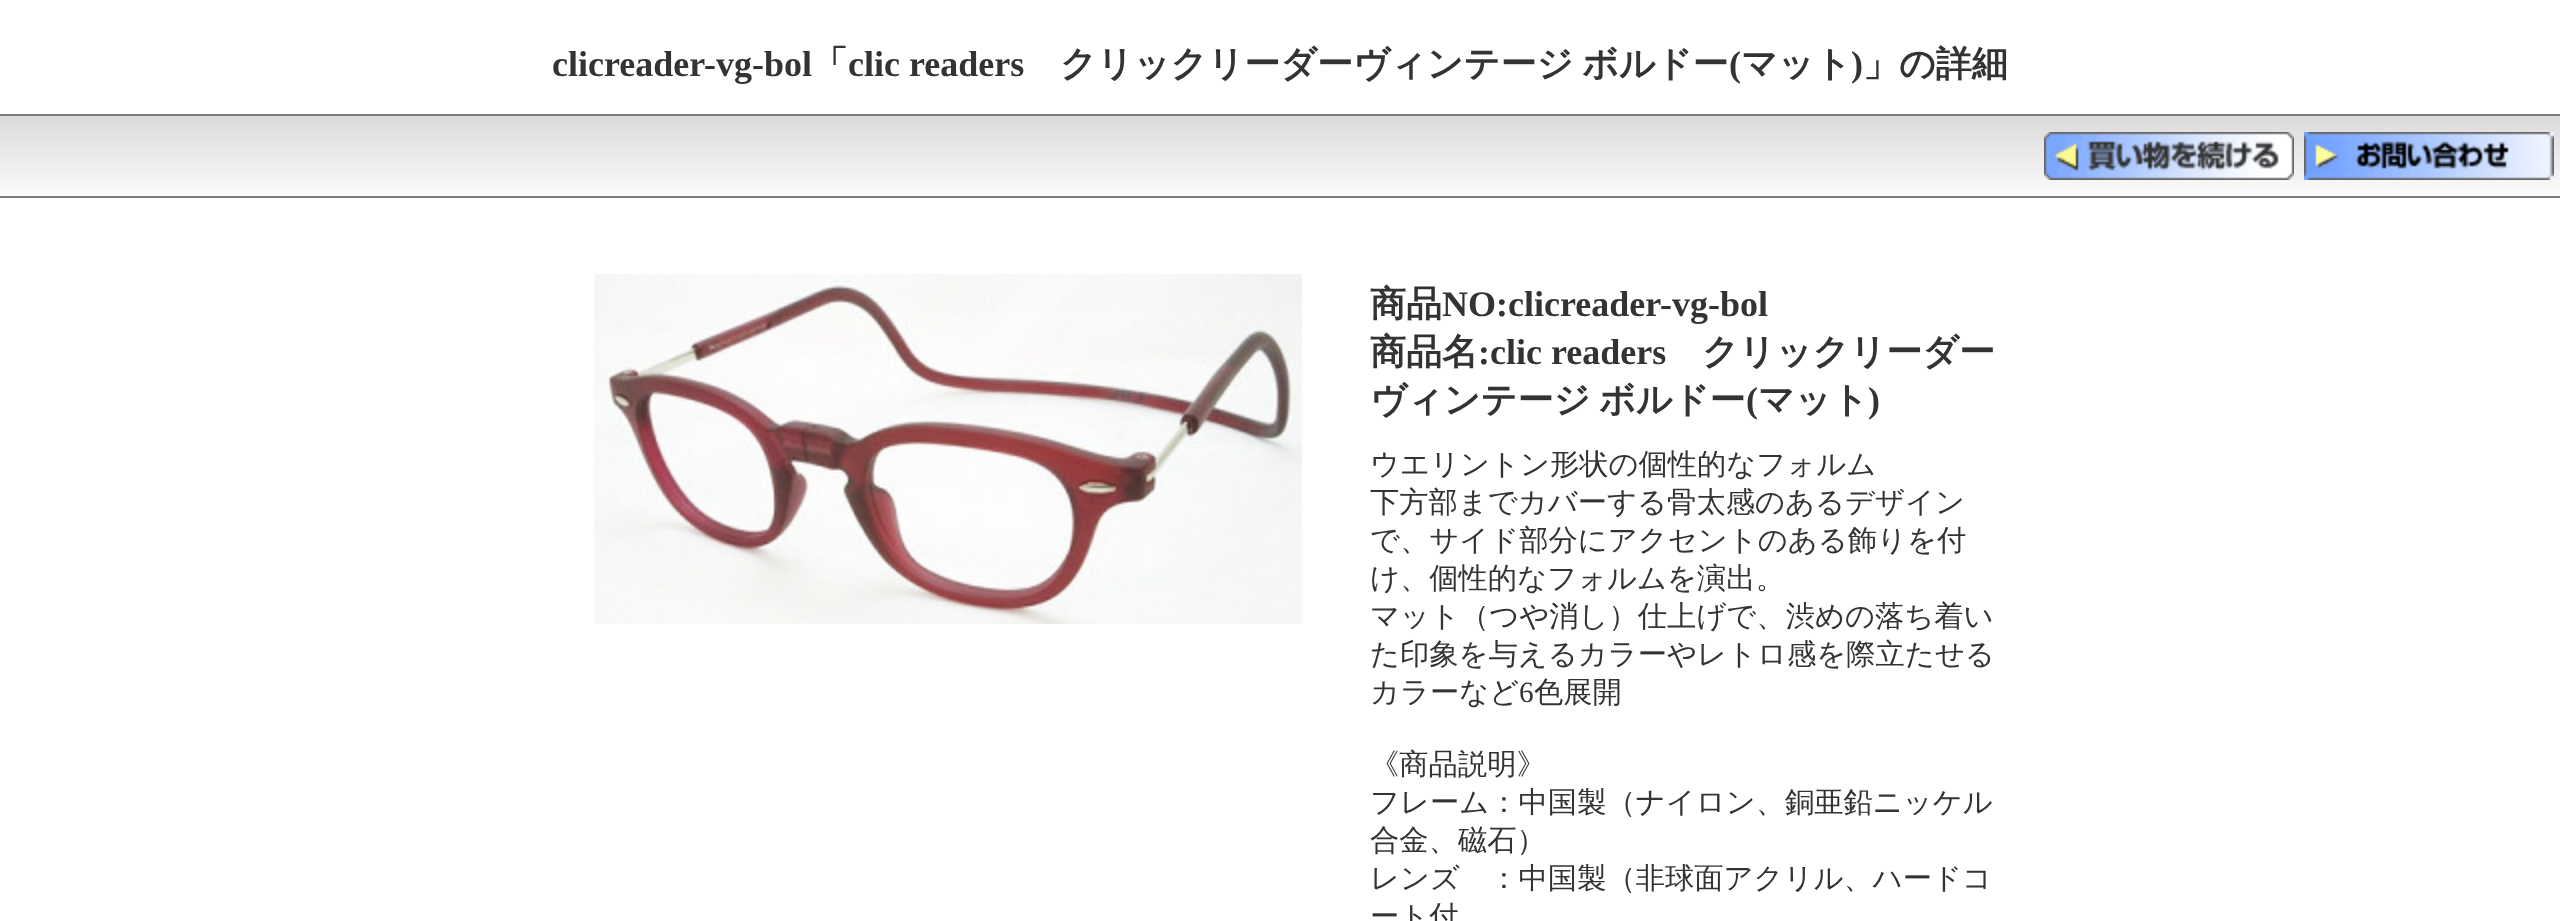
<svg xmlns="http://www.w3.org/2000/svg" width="2560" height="921">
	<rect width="100%" height="100%" fill="#FFFFFF" />
	<text x="552" y="76" font-family="Liberation Serif" font-size="36" font-weight="700" fill="#333333">clicreader-vg-bol</text>
	<text x="812" y="76" font-family="WenQuanYi Zen Hei" font-size="36" font-weight="700" fill="#333333">「</text>
	<text x="848" y="76" font-family="Liberation Serif" font-size="36" font-weight="700" fill="#333333">clic readers</text>
	<g font-family="WenQuanYi Zen Hei" font-size="36" font-weight="700" fill="#333333">
		<text x="1060" y="76">クリックリーダーヴィンテージ</text>
		<text x="1582" y="76">ボルドー</text>
	</g>
	<text x="1729" y="76" font-family="Liberation Serif" font-size="36" font-weight="700" fill="#333333">(</text>
	<text x="1741" y="76" font-family="WenQuanYi Zen Hei" font-size="36" font-weight="700" fill="#333333">マット</text>
	<text x="1851" y="76" font-family="Liberation Serif" font-size="36" font-weight="700" fill="#333333">)</text>
	<text x="1863" y="76" font-family="WenQuanYi Zen Hei" font-size="36" font-weight="700" fill="#333333">」の詳細</text>
	<rect x="0" y="114" width="2560" height="2" fill="#7D7B7B" />
	<image x="0" y="116" width="2560" height="80" href="assets/img1.png" />
	<image x="2044" y="132" width="250" height="48" href="assets/img2.png" />
	<image x="2304" y="132" width="250" height="48" href="assets/img3.png" />
	<rect x="0" y="196" width="2560" height="2" fill="#7D7B7B" />
	<image x="594" y="274" width="709" height="350" href="assets/img4.png" />
	<text x="1370" y="316" font-family="WenQuanYi Zen Hei" font-size="36" font-weight="700" fill="#333333">商品</text>
	<text x="1442" y="316" font-family="Liberation Serif" font-size="36" font-weight="700" fill="#333333">NO:clicreader-vg-bol</text>
	<text x="1370" y="364" font-family="WenQuanYi Zen Hei" font-size="36" font-weight="700" fill="#333333">商品名</text>
	<text x="1478" y="364" font-family="Liberation Serif" font-size="36" font-weight="700" fill="#333333">:clic readers</text>
	<g font-family="WenQuanYi Zen Hei" font-size="36" font-weight="700" fill="#333333">
		<text x="1702" y="364">クリックリーダー</text>
		<text x="1370" y="412" word-spacing="-2">ヴィンテージ ボルドー</text>
	</g>
	<text x="1746" y="412" font-family="Liberation Serif" font-size="36" font-weight="700" fill="#333333">(</text>
	<text x="1758" y="412" font-family="WenQuanYi Zen Hei" font-size="36" font-weight="700" fill="#333333">マット</text>
	<text x="1868" y="412" font-family="Liberation Serif" font-size="36" font-weight="700" fill="#333333">)</text>
	<g font-family="WenQuanYi Zen Hei" font-size="29.3" font-weight="500" fill="#333333">
		<text x="1370" y="474">ウエリントン形状の個性的なフォルム</text>
		<text x="1370" y="512">下方部までカバーする骨太感のあるデザイン</text>
		<text x="1370" y="550">で、サイド部分にアクセントのある飾りを付</text>
		<text x="1370" y="588">け、個性的なフォルムを演出。</text>
		<text x="1370" y="626">マット（つや消し）仕上げで、渋めの落ち着い</text>
		<text x="1370" y="664">た印象を与えるカラーやレトロ感を際立たせる</text>
		<text x="1370" y="702">カラーなど</text>
	</g>
	<text x="1519" y="702" font-family="Liberation Serif" font-size="29.3" fill="#333333">6</text>
	<g font-family="WenQuanYi Zen Hei" font-size="29.3" font-weight="500" fill="#333333">
		<text x="1534" y="702">色展開</text>
		<text x="1370" y="774">《商品説明》</text>
		<text x="1370" y="812">フレーム：中国製（ナイロン、銅亜鉛ニッケル</text>
		<text x="1370" y="850">合金、磁石）</text>
		<text x="1370" y="888">レンズ　：中国製（非球面アクリル、ハードコ</text>
		<text x="1370" y="926">ート付</text>
	</g>
</svg>
